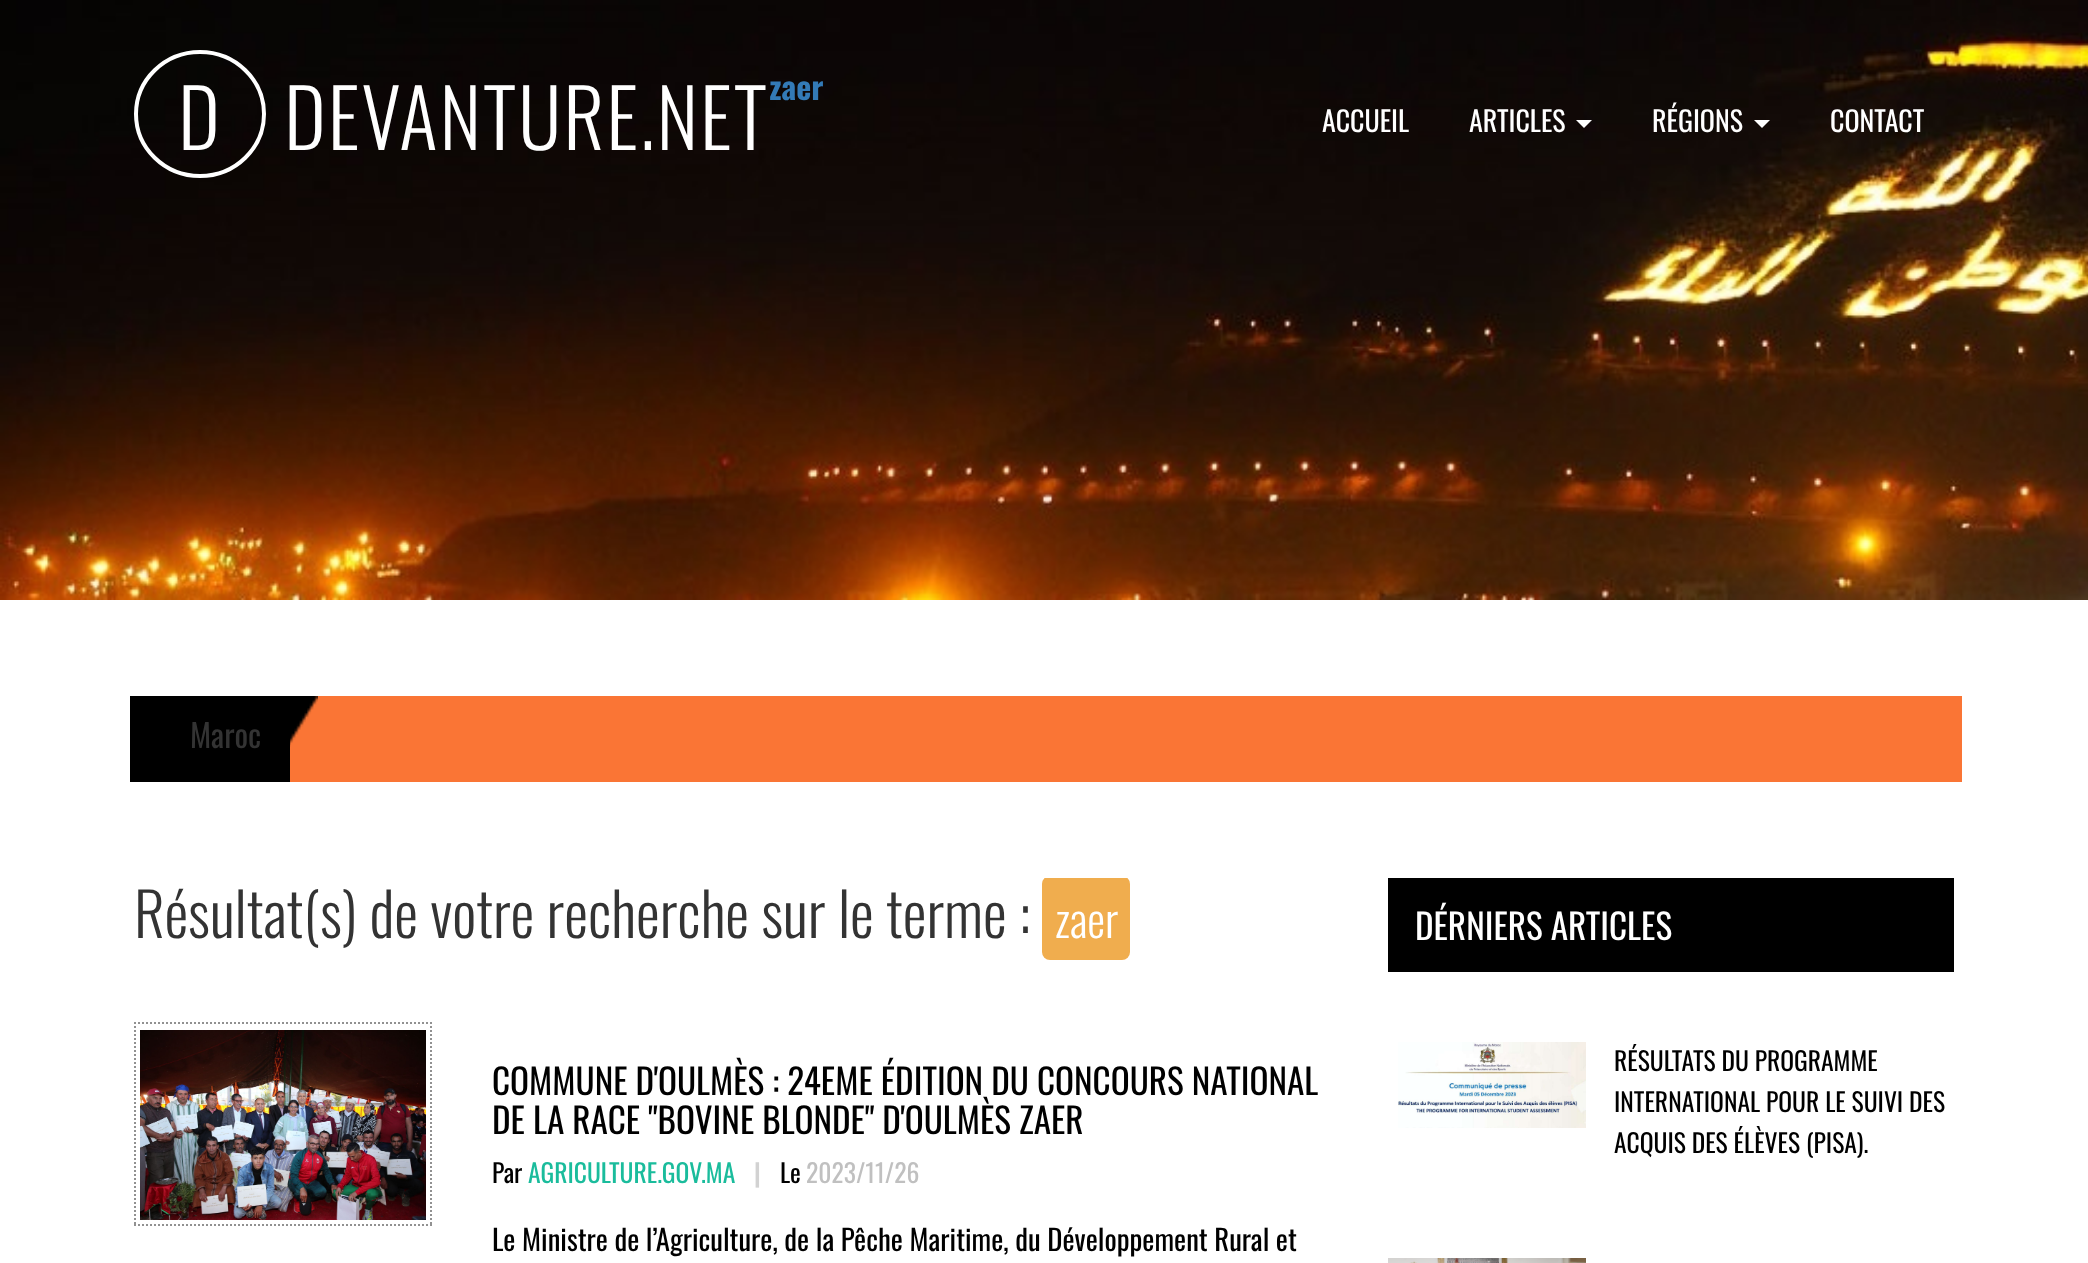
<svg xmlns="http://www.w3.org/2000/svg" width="2088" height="1263">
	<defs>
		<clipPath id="clip1"><rect x="134" y="878" width="1194" height="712" /></clipPath>
	</defs>
	<rect width="100%" height="100%" fill="#FFFFFF" />
	<image x="0" y="0" width="2088" height="600" href="assets/img1.png" />
	<path d="M200 52C235.5 52 264 80 264 114C264 148 235.5 176 200 176C164.5 176 136 148 136 114C136 80 164.5 52 200 52Z" fill="none" stroke="#FFFFFF" stroke-width="4" />
	<g font-family="Oswald" font-size="80" font-weight="300" letter-spacing="2" fill="#FFFFFF">
		<text x="178" y="150">D</text>
		<text x="284" y="150">DEVANTURE.NET</text>
	</g>
	<text x="769" y="100" font-family="Oswald" font-size="32" font-weight="700" fill="#337AB7">zaer</text>
	<g font-family="Oswald" font-size="28" fill="#FFFFFF">
		<text x="1322" y="132">ACCUEIL</text>
		<text x="1469" y="132">ARTICLES</text>
	</g>
	<path d="M1576 120H1592L1584 128Z" fill="#FFFFFF" />
	<text x="1652" y="132" font-family="Oswald" font-size="28" fill="#FFFFFF">RÉGIONS</text>
	<path d="M1754 120H1770L1762 128Z" fill="#FFFFFF" />
	<text x="1830" y="132" font-family="Oswald" font-size="28" fill="#FFFFFF">CONTACT</text>
	<rect x="290" y="696" width="1672" height="86" fill="#FA7535" />
	<rect x="130" y="696" width="160" height="86" fill="#000000" />
	<text x="190" y="748" font-family="Oswald" font-size="32" fill="#333333">Maroc</text>
	<image x="290" y="696" width="28" height="51" href="assets/img2.png" />
	<text x="134" y="938" font-family="Oswald" font-size="60" font-weight="300" fill="#333333">Résultat(s) de votre recherche sur le terme :</text>
	<g clip-path="url(#clip1)">
		<rect x="1042" y="876" width="88" height="84" rx="8" fill="#F0AD4E" />
	</g>
	<text x="1055" y="938" font-family="Oswald" font-size="45" font-weight="300" fill="#FFFFFF">zaer</text>
	<path d="M134 1023H432" fill="none" stroke="#919191" stroke-width="2" stroke-dasharray="2 2" />
	<path d="M431 1022V1226" fill="none" stroke="#919191" stroke-width="2" stroke-dasharray="2 2" />
	<path d="M134 1225H432" fill="none" stroke="#919191" stroke-width="2" stroke-dasharray="2 2" />
	<path d="M135 1022V1226" fill="none" stroke="#919191" stroke-width="2" stroke-dasharray="2 2" />
	<image x="140" y="1030" width="286" height="190" href="assets/img3.png" />
	<g font-family="Oswald" font-size="35.2" fill="#000000">
		<text x="492" y="1095">COMMUNE D'OULMÈS : 24EME ÉDITION DU CONCOURS NATIONAL</text>
		<text x="492" y="1134">DE LA RACE "BOVINE BLONDE" D'OULMÈS ZAER</text>
	</g>
	<text x="492" y="1183" font-family="Oswald" font-size="25.6" fill="#000000">Par</text>
	<text x="528" y="1183" font-family="Oswald" font-size="25.6" fill="#1ABC9C">AGRICULTURE.GOV.MA</text>
	<text x="754" y="1183" font-family="Oswald" font-size="25.6" font-weight="700" fill="#D2D2D2">|</text>
	<text x="780" y="1183" font-family="Oswald" font-size="25.6" fill="#000000">Le</text>
	<text x="806" y="1183" font-family="Oswald" font-size="25.6" fill="#C0C0C0">2023/11/26</text>
	<text x="492" y="1251" font-family="Oswald" font-size="28.8" fill="#000000">Le Ministre de l’Agriculture, de la Pêche Maritime, du Développement Rural et</text>
	<rect x="1388" y="878" width="566" height="94" fill="#000000" />
	<text x="1415" y="940" font-family="Oswald" font-size="35.2" fill="#FFFFFF">DÉRNIERS ARTICLES</text>
	<image x="1398" y="1042" width="188" height="86" href="assets/img4.png" />
	<g font-family="Oswald" font-size="25.6" fill="#000000">
		<text x="1614" y="1071">RÉSULTATS DU PROGRAMME</text>
		<text x="1614" y="1112">INTERNATIONAL POUR LE SUIVI DES</text>
		<text x="1614" y="1153">ACQUIS DES ÉLÈVES (PISA).</text>
	</g>
	<image x="1388" y="1258" width="198" height="5" href="assets/img5.png" />
</svg>
